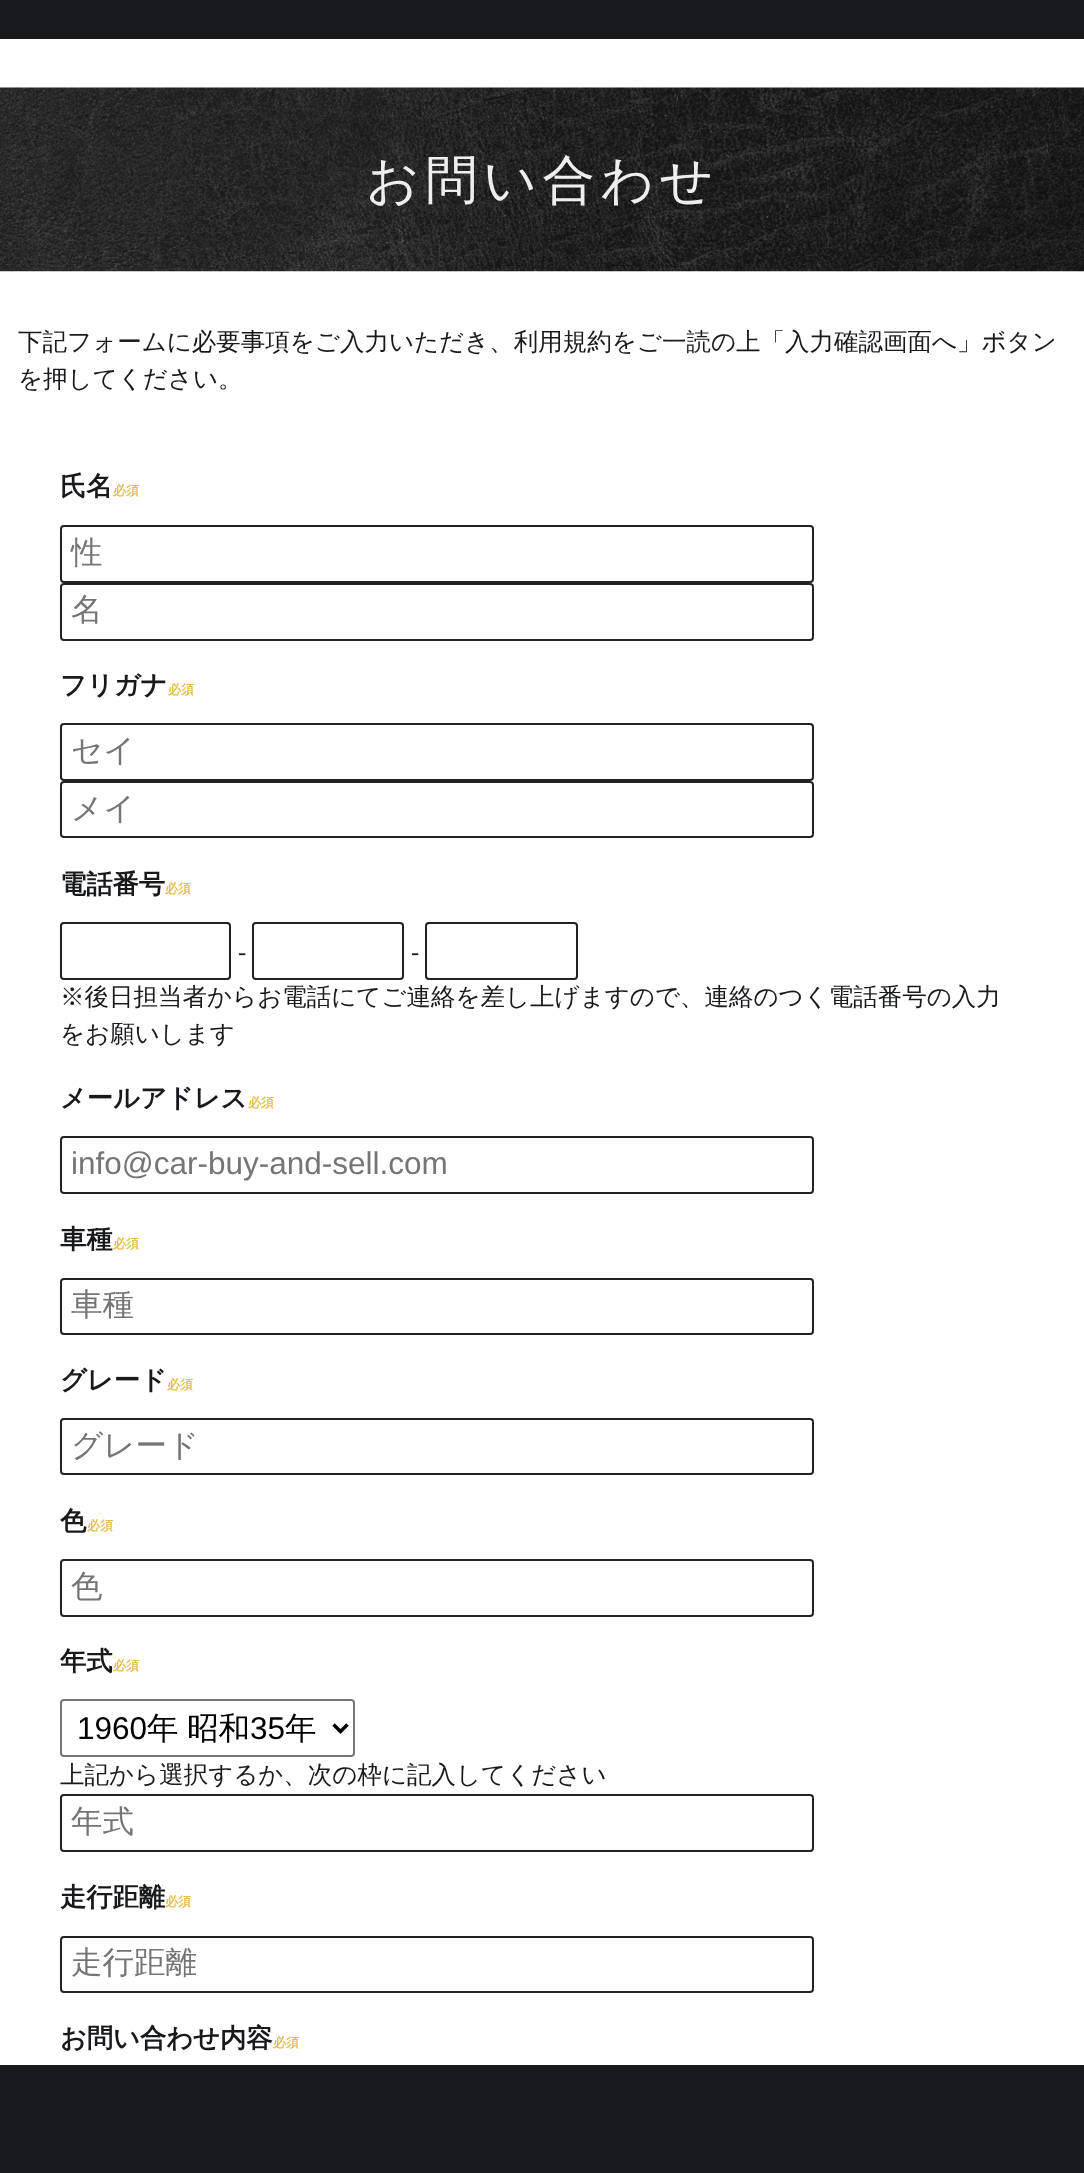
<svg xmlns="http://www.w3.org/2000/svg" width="1084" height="2173">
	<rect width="100%" height="100%" fill="#FFFFFF" />
	<rect x="0" y="0" width="1084" height="39" fill="#17191C" />
	<image x="0" y="87" width="1084" height="185" href="assets/img1.png" />
	<text x="366" y="198" font-family="WenQuanYi Zen Hei" font-size="52.5" font-weight="500" letter-spacing="5.5" fill="#EEEEEE">お問い合わせ</text>
	<g font-family="WenQuanYi Zen Hei" font-size="24.5" font-weight="500" fill="#17191C">
		<text x="18" y="350">下記フォームに必要事項をご入力いただき、利用規約をご一読の上「入力確認画面へ」ボタン</text>
		<text x="18" y="387">を押してください。</text>
	</g>
	<text x="60" y="495" font-family="WenQuanYi Zen Hei" font-size="26.25" font-weight="700" fill="#17191C">氏名</text>
	<text x="113" y="495" font-family="WenQuanYi Zen Hei" font-size="13" font-weight="700" fill="#E6BE50">必須</text>
	<rect x="61" y="526" width="752" height="56" rx="3" fill="none" stroke="#222222" stroke-width="2" />
	<text x="71" y="563" font-family="WenQuanYi Zen Hei" font-size="31.5" font-weight="500" fill="#757575">性</text>
	<rect x="61" y="584" width="752" height="56" rx="3" fill="none" stroke="#222222" stroke-width="2" />
	<text x="71" y="620" font-family="WenQuanYi Zen Hei" font-size="31.5" font-weight="500" fill="#757575">名</text>
	<text x="60" y="694" font-family="WenQuanYi Zen Hei" font-size="26.25" font-weight="700" fill="#17191C">フリガナ</text>
	<text x="168" y="694" font-family="WenQuanYi Zen Hei" font-size="13" font-weight="700" fill="#E6BE50">必須</text>
	<rect x="61" y="724" width="752" height="56" rx="3" fill="none" stroke="#222222" stroke-width="2" />
	<text x="71" y="761" font-family="WenQuanYi Zen Hei" font-size="31.5" font-weight="500" fill="#757575">セイ</text>
	<rect x="61" y="782" width="752" height="55" rx="3" fill="none" stroke="#222222" stroke-width="2" />
	<text x="71" y="819" font-family="WenQuanYi Zen Hei" font-size="31.5" font-weight="500" fill="#757575">メイ</text>
	<text x="60" y="893" font-family="WenQuanYi Zen Hei" font-size="26.25" font-weight="700" fill="#17191C">電話番号</text>
	<text x="165" y="893" font-family="WenQuanYi Zen Hei" font-size="13" font-weight="700" fill="#E6BE50">必須</text>
	<rect x="61" y="923" width="169" height="56" rx="3" fill="none" stroke="#222222" stroke-width="2" />
	<text x="238" y="960" font-family="Liberation Serif" font-size="24.5" fill="#17191C">-</text>
	<rect x="253" y="923" width="150" height="56" rx="3" fill="none" stroke="#222222" stroke-width="2" />
	<text x="411" y="960" font-family="Liberation Serif" font-size="24.5" fill="#17191C">-</text>
	<rect x="426" y="923" width="151" height="56" rx="3" fill="none" stroke="#222222" stroke-width="2" />
	<g font-family="WenQuanYi Zen Hei" font-size="24.5" font-weight="500" fill="#17191C">
		<text x="60" y="1005">※後日担当者からお電話にてご連絡を差し上げますので、連絡のつく電話番号の入力</text>
		<text x="60" y="1042">をお願いします</text>
	</g>
	<text x="60" y="1107" font-family="WenQuanYi Zen Hei" font-size="26.25" font-weight="700" fill="#17191C">メールアドレス</text>
	<text x="248" y="1107" font-family="WenQuanYi Zen Hei" font-size="13" font-weight="700" fill="#E6BE50">必須</text>
	<rect x="61" y="1137" width="752" height="56" rx="3" fill="none" stroke="#222222" stroke-width="2" />
	<text x="71" y="1174" font-family="Liberation Sans" font-size="31.5" fill="#757575">info@car-buy-and-sell.com</text>
	<text x="60" y="1248" font-family="WenQuanYi Zen Hei" font-size="26.25" font-weight="700" fill="#17191C">車種</text>
	<text x="113" y="1248" font-family="WenQuanYi Zen Hei" font-size="13" font-weight="700" fill="#E6BE50">必須</text>
	<rect x="61" y="1279" width="752" height="55" rx="3" fill="none" stroke="#222222" stroke-width="2" />
	<text x="71" y="1315" font-family="WenQuanYi Zen Hei" font-size="31.5" font-weight="500" fill="#757575">車種</text>
	<text x="60" y="1389" font-family="WenQuanYi Zen Hei" font-size="26.25" font-weight="700" fill="#17191C">グレード</text>
	<text x="167" y="1389" font-family="WenQuanYi Zen Hei" font-size="13" font-weight="700" fill="#E6BE50">必須</text>
	<rect x="61" y="1419" width="752" height="55" rx="3" fill="none" stroke="#222222" stroke-width="2" />
	<text x="71" y="1456" font-family="WenQuanYi Zen Hei" font-size="31.5" font-weight="500" fill="#757575">グレード</text>
	<text x="60" y="1530" font-family="WenQuanYi Zen Hei" font-size="26.25" font-weight="700" fill="#17191C">色</text>
	<text x="87" y="1530" font-family="WenQuanYi Zen Hei" font-size="13" font-weight="700" fill="#E6BE50">必須</text>
	<rect x="61" y="1560" width="752" height="56" rx="3" fill="none" stroke="#222222" stroke-width="2" />
	<text x="71" y="1597" font-family="WenQuanYi Zen Hei" font-size="31.5" font-weight="500" fill="#757575">色</text>
	<text x="60" y="1670" font-family="WenQuanYi Zen Hei" font-size="26.25" font-weight="700" fill="#17191C">年式</text>
	<text x="113" y="1670" font-family="WenQuanYi Zen Hei" font-size="13" font-weight="700" fill="#E6BE50">必須</text>
	<rect x="61" y="1700" width="293" height="56" rx="3" fill="none" stroke="#767676" stroke-width="2" />
	<path d="M333.5 1724.5L340.5 1731.5L347.5 1724.5" fill="none" stroke="#000000" stroke-width="3.5" />
	<text x="77" y="1739" font-family="Liberation Sans" font-size="31.5" fill="#000000">1960</text>
	<text x="147" y="1739" word-spacing="-1" font-family="WenQuanYi Zen Hei" font-size="31.5" font-weight="500" fill="#000000">年 昭和</text>
	<text x="250" y="1739" font-family="Liberation Sans" font-size="31.5" fill="#000000">35</text>
	<text x="285" y="1739" font-family="WenQuanYi Zen Hei" font-size="31.5" font-weight="500" fill="#000000">年</text>
	<text x="60" y="1783" font-family="WenQuanYi Zen Hei" font-size="24.5" font-weight="500" fill="#17191C">上記から選択するか、次の枠に記入してください</text>
	<rect x="61" y="1795" width="752" height="56" rx="3" fill="none" stroke="#222222" stroke-width="2" />
	<text x="71" y="1832" font-family="WenQuanYi Zen Hei" font-size="31.5" font-weight="500" fill="#757575">年式</text>
	<text x="60" y="1906" font-family="WenQuanYi Zen Hei" font-size="26.25" font-weight="700" fill="#17191C">走行距離</text>
	<text x="165" y="1906" font-family="WenQuanYi Zen Hei" font-size="13" font-weight="700" fill="#E6BE50">必須</text>
	<rect x="61" y="1937" width="752" height="55" rx="3" fill="none" stroke="#222222" stroke-width="2" />
	<text x="71" y="1973" font-family="WenQuanYi Zen Hei" font-size="31.5" font-weight="500" fill="#757575">走行距離</text>
	<text x="60" y="2047" font-family="WenQuanYi Zen Hei" font-size="26.25" font-weight="700" fill="#17191C">お問い合わせ内容</text>
	<text x="273" y="2047" font-family="WenQuanYi Zen Hei" font-size="13" font-weight="700" fill="#E6BE50">必須</text>
	<rect x="0" y="2065" width="1084" height="108" fill="#17191C" />
</svg>
